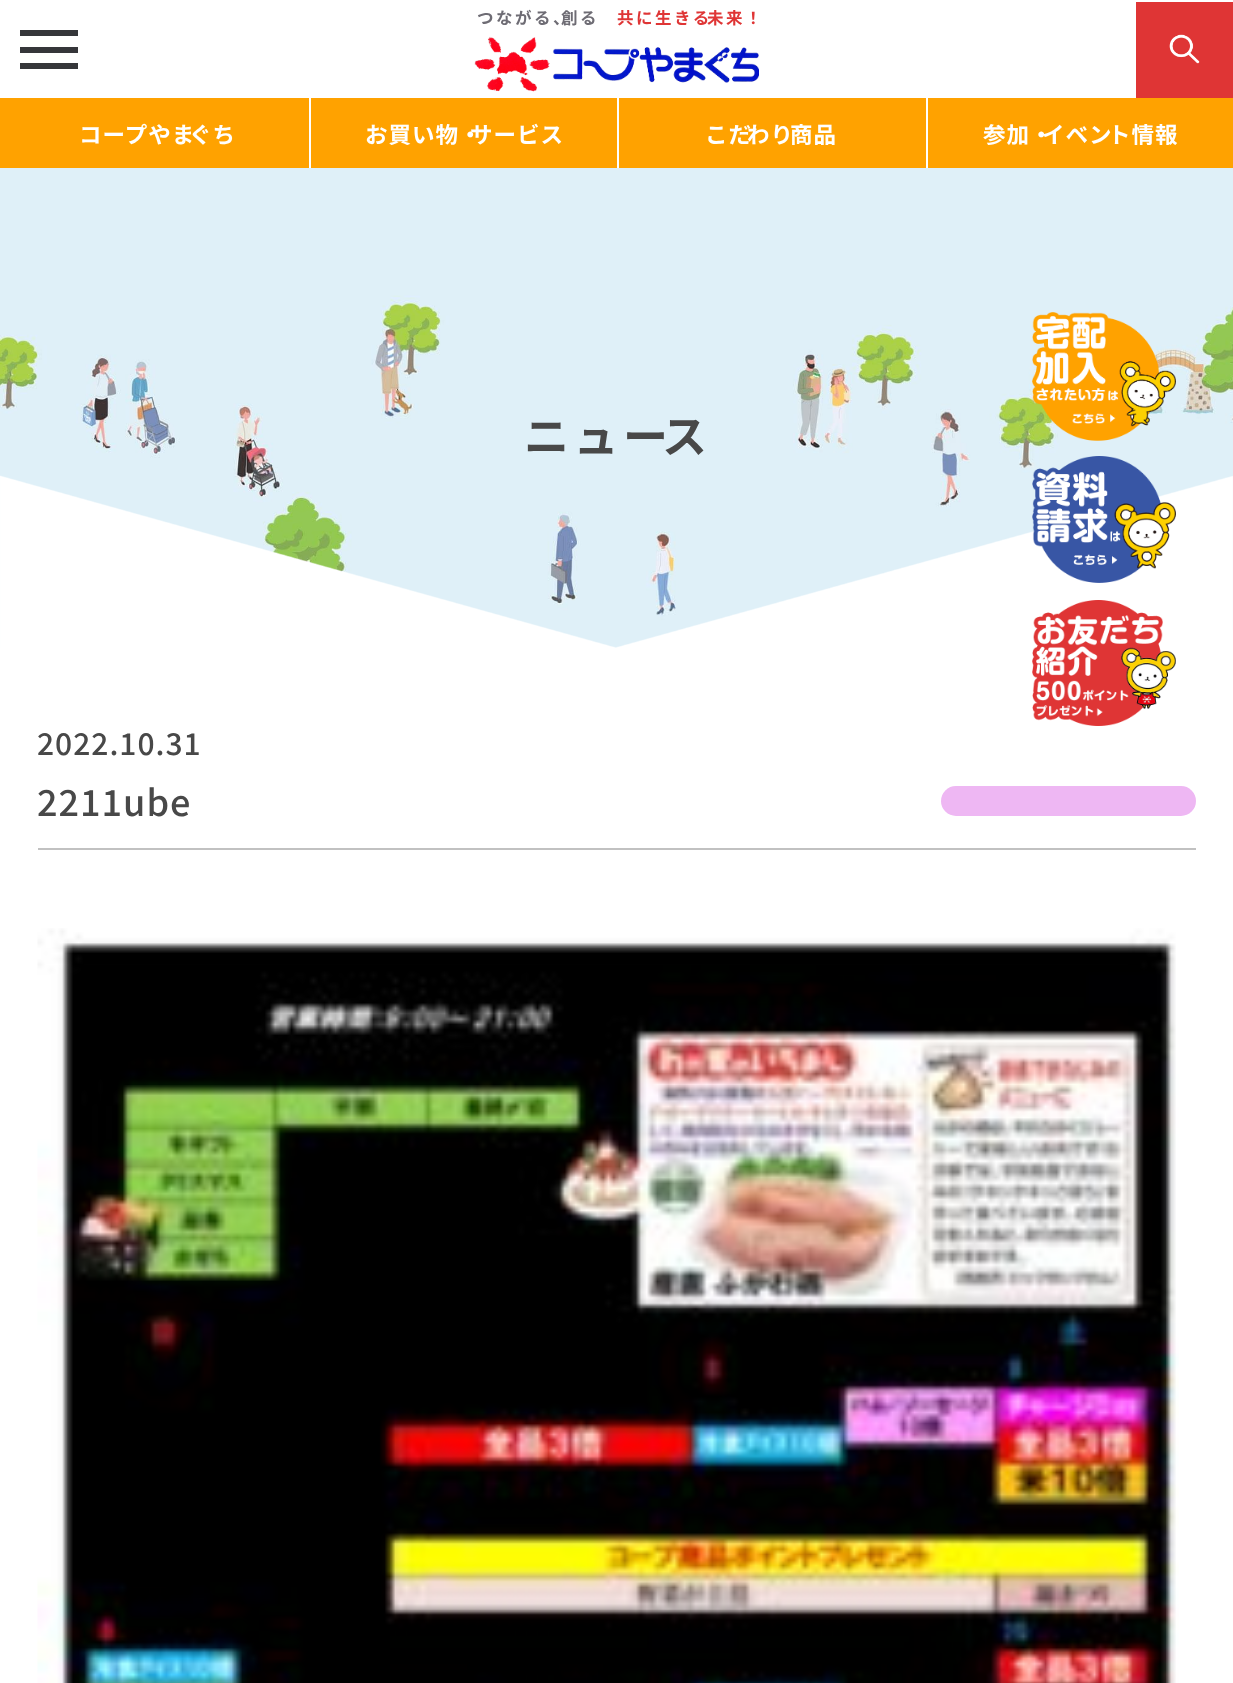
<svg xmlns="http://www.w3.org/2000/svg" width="1233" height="1683">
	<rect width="100%" height="100%" fill="#FFFFFF" />
	<text x="477" y="24" font-family="Noto Sans JP" font-size="16.5" font-weight="700" letter-spacing="2.5" fill="#6E6C74">つながる、</text>
	<text x="561" y="24" font-family="Noto Sans JP" font-size="16.5" font-weight="700" letter-spacing="2.5" fill="#6E6C74">創る</text>
	<text x="617" y="24" font-family="Noto Sans JP" font-size="16.5" font-weight="700" letter-spacing="2.5" fill="#DF3535">共に生きる</text>
	<text x="707" y="24" font-family="Noto Sans JP" font-size="16.5" font-weight="700" letter-spacing="2.5" fill="#DF3535">未来！</text>
	<image x="474" y="36" width="285" height="56" href="assets/img1.png" />
	<rect x="1136" y="2" width="97" height="96" fill="#DF3535" />
	<image x="1169" y="34" width="31" height="30" href="assets/img2.png" />
	<rect x="20" y="30" width="58" height="6" fill="#35363A" />
	<rect x="20" y="47" width="58" height="6" fill="#35363A" />
	<rect x="20" y="63" width="58" height="6" fill="#35363A" />
	<rect x="0" y="98" width="309" height="70" fill="#FFA200" />
	<text x="79" y="143" font-family="Noto Sans JP" font-size="22.5" font-weight="700" letter-spacing="1" fill="#FFFFFF">コープやま</text>
	<text x="189" y="143" font-family="Noto Sans JP" font-size="22.5" font-weight="700" letter-spacing="1" fill="#FFFFFF">ぐち</text>
	<rect x="311" y="98" width="306" height="70" fill="#FFA200" />
	<text x="365" y="143" font-family="Noto Sans JP" font-size="22.5" font-weight="700" letter-spacing="1" fill="#FFFFFF">お買い物・</text>
	<text x="470" y="143" font-family="Noto Sans JP" font-size="22.5" font-weight="700" letter-spacing="1" fill="#FFFFFF">サービス</text>
	<rect x="619" y="98" width="307" height="70" fill="#FFA200" />
	<text x="705" y="143" font-family="Noto Sans JP" font-size="22.5" font-weight="700" letter-spacing="1" fill="#FFFFFF">こだ</text>
	<text x="747" y="143" font-family="Noto Sans JP" font-size="22.5" font-weight="700" letter-spacing="1" fill="#FFFFFF">わり</text>
	<text x="790" y="143" font-family="Noto Sans JP" font-size="22.5" font-weight="700" letter-spacing="1" fill="#FFFFFF">商品</text>
	<rect x="928" y="98" width="305" height="70" fill="#FFA200" />
	<text x="983" y="143" font-family="Noto Sans JP" font-size="22.5" font-weight="700" letter-spacing="1" fill="#FFFFFF">参加・</text>
	<text x="1042" y="143" font-family="Noto Sans JP" font-size="22.5" font-weight="700" letter-spacing="1" fill="#FFFFFF">イベン</text>
	<text x="1108" y="143" font-family="Noto Sans JP" font-size="22.5" font-weight="700" letter-spacing="1" fill="#FFFFFF">ト情報</text>
	<image x="0" y="168" width="1233" height="480" href="assets/img3.png" />
	<text x="524" y="453" font-family="Noto Sans JP" font-size="45" font-weight="700" letter-spacing="4.5" fill="#484848">ニュー</text>
	<text x="662" y="453" font-family="Noto Sans JP" font-size="45" font-weight="700" letter-spacing="4.5" fill="#484848">ス</text>
	<image x="0" y="475" width="1233" height="173" href="assets/img4.png" />
	<rect x="38" y="848" width="1158" height="2" fill="#C1C1C1" />
	<text x="37" y="755" font-family="Noto Sans JP" font-size="30" font-weight="500" letter-spacing="1" fill="#484848">2022.10.31</text>
	<text x="37" y="816" font-family="Noto Sans JP" font-size="36" font-weight="500" letter-spacing="1" fill="#484848">2211ube</text>
	<rect x="941" y="786" width="255" height="30" rx="15" fill="#EEB7F3" />
	<image x="37" y="928" width="1142" height="755" href="assets/img5.png" />
	<image x="1032" y="312" width="144" height="129" href="assets/img6.png" />
	<image x="1032" y="456" width="144" height="127" href="assets/img7.png" />
	<image x="1032" y="600" width="144" height="126" href="assets/img8.png" />
</svg>
